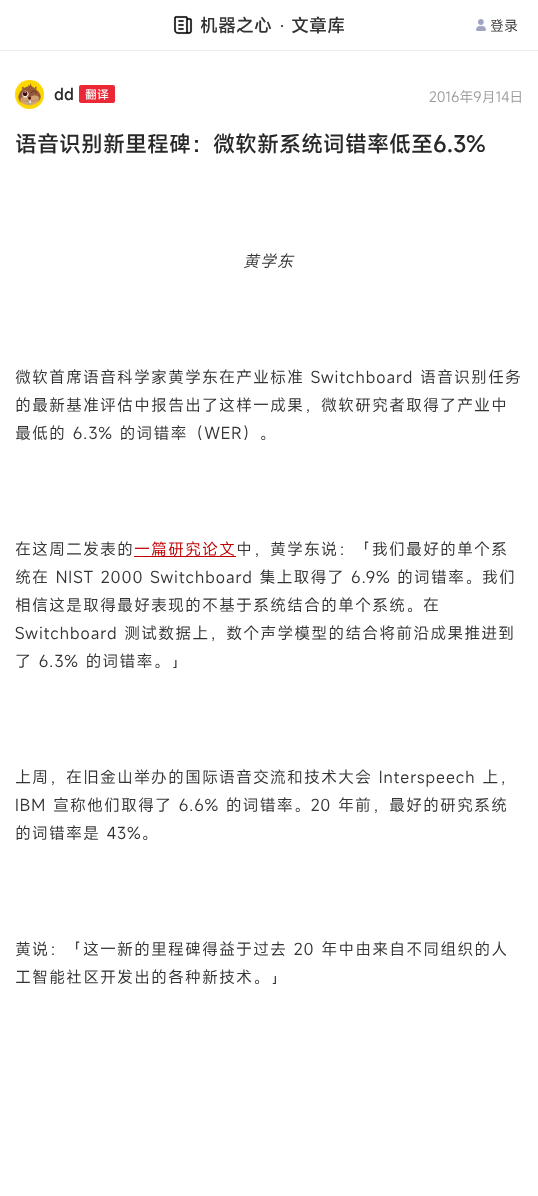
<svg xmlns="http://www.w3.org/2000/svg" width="538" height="1196">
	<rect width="100%" height="100%" fill="#FFFFFF" />
	<rect x="0" y="50" width="538" height="1" fill="#EBECF1" />
	<image x="173" y="15" width="20" height="20" href="assets/img1.png" />
	<text x="200" y="32" font-family="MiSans" font-size="18" font-weight="500" fill="#333333">机器之心</text>
	<text x="279" y="32" font-family="Liberation Serif" font-size="18" fill="#333333">·</text>
	<text x="291" y="32" font-family="MiSans" font-size="18" font-weight="500" fill="#333333">文章库</text>
	<image x="476" y="19" width="10" height="12" href="assets/img2.png" />
	<text x="490" y="31" font-family="MiSans" font-size="14" fill="#333333">登录</text>
	<image x="15" y="80" width="29" height="29" href="assets/img3.png" />
	<text x="54" y="100" font-family="MiSans" font-size="16" font-weight="500" fill="#282828">dd</text>
	<rect x="79" y="85" width="36" height="18" rx="2" fill="#EB2835" />
	<text x="85" y="99" font-family="MiSans" font-size="12" font-weight="500" fill="#F6F6F6">翻译</text>
	<text x="429" y="102" font-family="MiSans" font-size="14" fill="#9D9D9D">2016年9月14日</text>
	<text x="15" y="152" font-family="MiSans" font-size="22" font-weight="500" fill="#282828">语音识别新里程碑：微软新系统词错率低至6.3%</text>
	<text x="243" y="267" font-family="MiSans" font-size="16" font-style="italic" letter-spacing="1" fill="#333333">黄学东</text>
	<g font-family="MiSans" font-size="16" letter-spacing="1" fill="#333333">
		<text x="15" y="383">微软首席语音科学家黄学东在产业标准 Switchboard 语音识别任务</text>
		<text x="15" y="411">的最新基准评估中报告出了这样一成果，微软研究者取得了产业中</text>
		<text x="15" y="439">最低的 6.3% 的词错率（WER）。</text>
		<text x="15" y="555">在这周二发表的</text>
	</g>
	<rect x="134" y="556" width="102" height="1" fill="#C00000" />
	<text x="134" y="555" font-family="MiSans" font-size="16" letter-spacing="1" fill="#C00000">一篇研究论文</text>
	<g font-family="MiSans" font-size="16" letter-spacing="1" fill="#333333">
		<text x="236" y="555">中，黄学东说：「我们最好的单个系</text>
		<text x="15" y="583">统在 NIST 2000 Switchboard 集上取得了 6.9% 的词错率。我们</text>
		<text x="15" y="611">相信这是取得最好表现的不基于系统结合的单个系统。在</text>
		<text x="15" y="639">Switchboard 测试数据上，数个声学模型的结合将前沿成果推进到</text>
		<text x="15" y="667">了 6.3% 的词错率。」</text>
		<text x="15" y="783">上周，在旧金山举办的国际语音交流和技术大会 Interspeech 上，</text>
		<text x="15" y="811">IBM 宣称他们取得了 6.6% 的词错率。20 年前，最好的研究系统</text>
		<text x="15" y="839">的词错率是 43%。</text>
		<text x="15" y="955">黄说：「这一新的里程碑得益于过去 20 年中由来自不同组织的人</text>
		<text x="15" y="983">工智能社区开发出的各种新技术。」</text>
	</g>
</svg>
